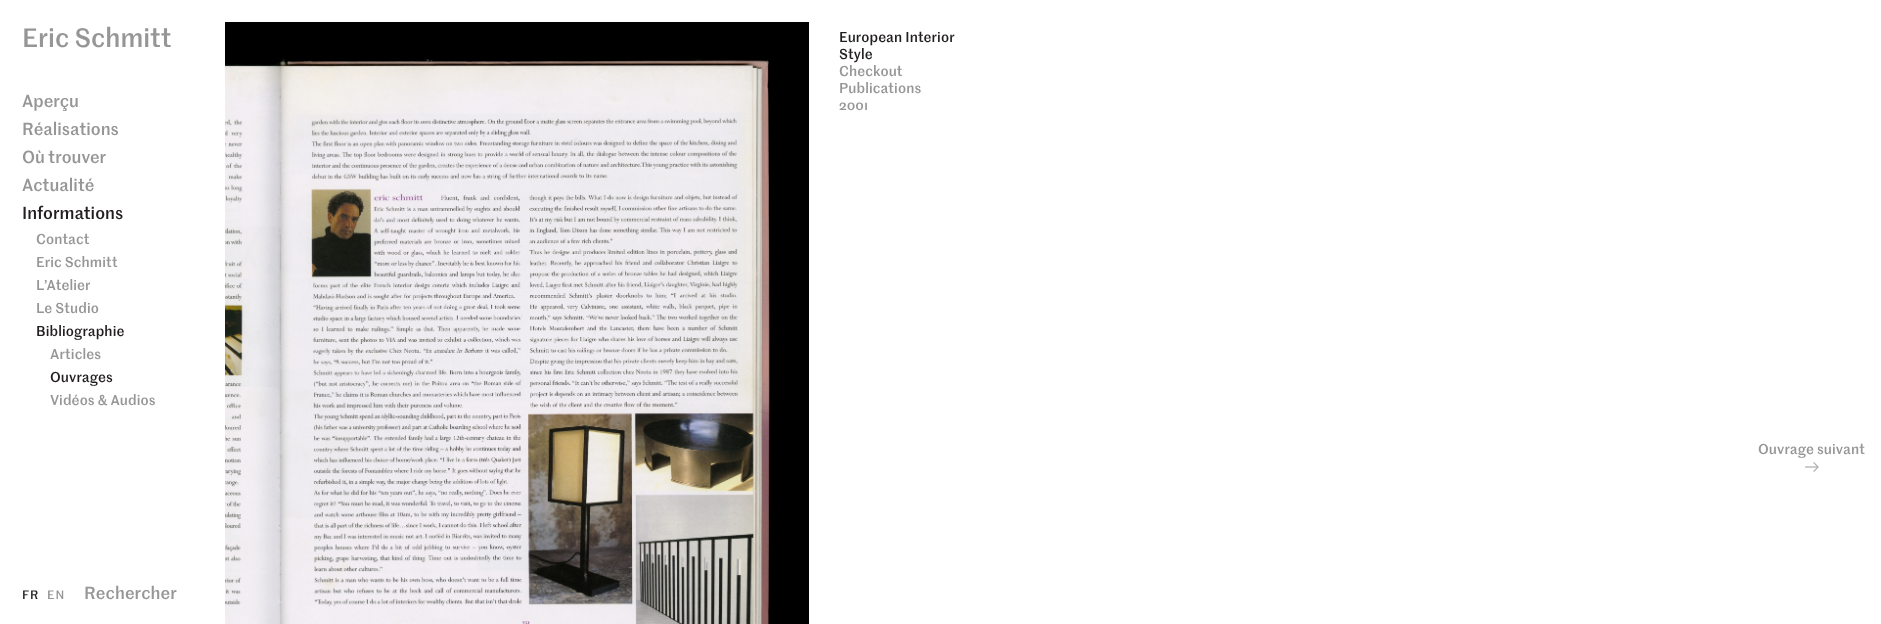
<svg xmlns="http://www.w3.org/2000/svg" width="1881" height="624">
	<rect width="100%" height="100%" fill="#FFFFFF" />
	<text x="22" y="47" font-family="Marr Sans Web" font-size="26" font-weight="500" fill="#969696">Eric Schmitt</text>
	<g font-family="Marr Sans Web" font-size="17" font-weight="500" fill="#969696">
		<text x="22" y="107">Aperçu</text>
		<text x="22" y="135">Réalisations</text>
		<text x="22" y="163">Où trouver</text>
		<text x="22" y="191">Actualité</text>
	</g>
	<text x="22" y="219" font-family="Marr Sans Web" font-size="17" font-weight="500" fill="#231F20">Informations</text>
	<g font-family="Marr Sans Web" font-size="14" font-weight="500" letter-spacing="0.1" fill="#969696">
		<text x="36" y="244">Contact</text>
		<text x="36" y="267">Eric Schmitt</text>
		<text x="36" y="290">L’Atelier</text>
		<text x="36" y="313">Le Studio</text>
	</g>
	<text x="36" y="336" font-family="Marr Sans Web" font-size="14" font-weight="500" letter-spacing="0.1" fill="#231F20">Bibliographie</text>
	<text x="50" y="359" font-family="Marr Sans Web" font-size="14" font-weight="500" letter-spacing="0.1" fill="#969696">Articles</text>
	<text x="50" y="382" font-family="Marr Sans Web" font-size="14" font-weight="500" letter-spacing="0.1" fill="#231F20">Ouvrages</text>
	<text x="50" y="405" font-family="Marr Sans Web" font-size="14" font-weight="500" letter-spacing="0.1" fill="#969696">Vidéos &amp; Audios</text>
	<image x="225" y="22" width="584" height="602" href="assets/img1.png" />
	<g font-family="Marr Sans Web" font-size="14" font-weight="500" letter-spacing="0.1" fill="#231F20">
		<text x="839" y="42">European Interior</text>
		<text x="839" y="59">Style</text>
	</g>
	<g font-family="Marr Sans Web" font-size="14" font-weight="500" letter-spacing="0.1" fill="#969696">
		<text x="839" y="76">Checkout</text>
		<text x="839" y="93">Publications</text>
	</g>
	<text x="839" y="110" font-family="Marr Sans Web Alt" font-size="14" font-weight="500" letter-spacing="0.1" fill="#969696">2001</text>
	<text x="22" y="599" font-family="Marr Sans Web" font-size="12" font-weight="500" letter-spacing="1" fill="#231F20">FR</text>
	<text x="47" y="599" font-family="Marr Sans Web" font-size="12" font-weight="500" letter-spacing="1" fill="#969696">EN</text>
	<text x="84" y="599" font-family="Marr Sans Web" font-size="17" font-weight="500" letter-spacing="0.1" fill="#969696">Rechercher</text>
	<text x="1758" y="454" font-family="Marr Sans Web" font-size="14" font-weight="500" letter-spacing="0.1" fill="#969696">Ouvrage suivant</text>
	<image x="1805" y="462" width="14" height="10" href="assets/img2.png" />
</svg>
